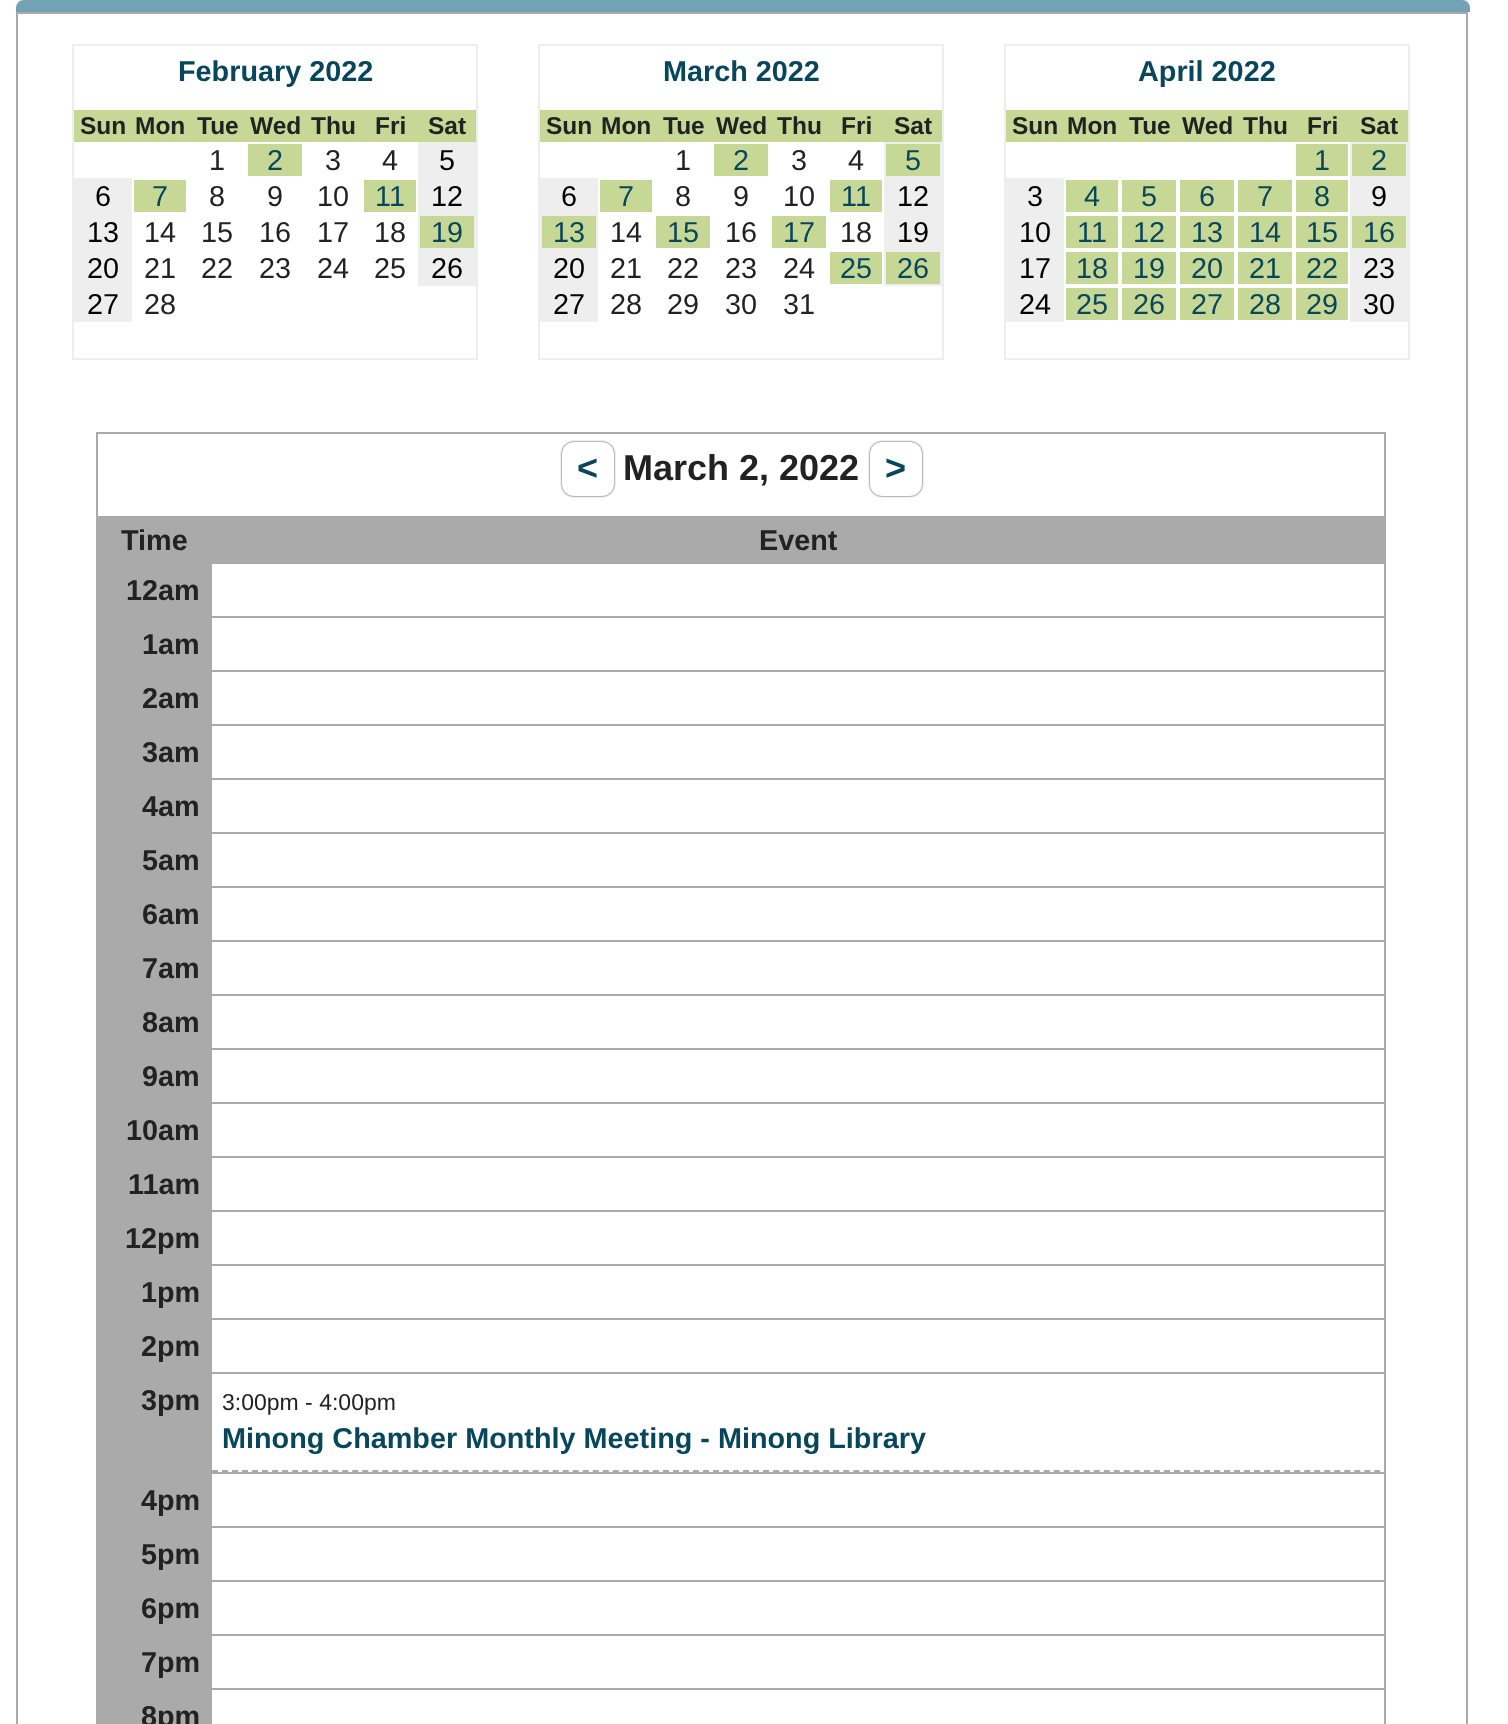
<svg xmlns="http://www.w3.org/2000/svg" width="1508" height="1724">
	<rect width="100%" height="100%" fill="#FFFFFF" />
	<path d="M24 0H1462C1466.5 0 1470 3.5 1470 8V12H16V8C16 3.5 19.5 0 24 0Z" fill="#72A3B4" />
	<rect x="17" y="13" width="1450" height="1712" fill="none" stroke="#AAAAAA" stroke-width="2" />
	<rect x="72" y="44" width="406" height="2" fill="#EEEEEE" />
	<rect x="476" y="44" width="2" height="316" fill="#EEEEEE" />
	<rect x="72" y="358" width="406" height="2" fill="#EEEEEE" />
	<rect x="72" y="44" width="2" height="316" fill="#EEEEEE" />
	<text x="178" y="81" font-family="Liberation Sans" font-size="28.8" font-weight="700" fill="#07465B">February 2022</text>
	<rect x="74" y="110" width="402" height="32" fill="#C7D896" />
	<g font-family="Liberation Sans" font-size="24.5" font-weight="700" fill="#222222">
		<text x="80" y="134">Sun</text>
		<text x="135" y="134">Mon</text>
		<text x="197" y="134">Tue</text>
		<text x="250" y="134">Wed</text>
		<text x="311" y="134">Thu</text>
		<text x="375" y="134">Fri</text>
		<text x="428" y="134">Sat</text>
	</g>
	<text x="209" y="170" font-family="Liberation Sans" font-size="28.8" fill="#222222">1</text>
	<rect x="248" y="144" width="54" height="32" fill="#C7D896" />
	<text x="267" y="170" font-family="Liberation Sans" font-size="28.8" fill="#07465B">2</text>
	<g font-family="Liberation Sans" font-size="28.8" fill="#222222">
		<text x="325" y="170">3</text>
		<text x="382" y="170">4</text>
	</g>
	<rect x="418" y="142" width="58" height="144" fill="#EEEEEE" />
	<text x="439" y="170" font-family="Liberation Sans" font-size="28.8" fill="#000000">5</text>
	<rect x="74" y="178" width="58" height="144" fill="#EEEEEE" />
	<text x="95" y="206" font-family="Liberation Sans" font-size="28.8" fill="#000000">6</text>
	<rect x="134" y="180" width="52" height="32" fill="#C7D896" />
	<text x="152" y="206" font-family="Liberation Sans" font-size="28.8" fill="#07465B">7</text>
	<g font-family="Liberation Sans" font-size="28.8" fill="#222222">
		<text x="209" y="206">8</text>
		<text x="267" y="206">9</text>
		<text x="317" y="206">10</text>
	</g>
	<rect x="364" y="180" width="52" height="32" fill="#C7D896" />
	<text x="375" y="206" font-family="Liberation Sans" font-size="28.8" fill="#07465B">11</text>
	<g font-family="Liberation Sans" font-size="28.8" fill="#000000">
		<text x="431" y="206">12</text>
		<text x="87" y="242">13</text>
	</g>
	<g font-family="Liberation Sans" font-size="28.8" fill="#222222">
		<text x="144" y="242">14</text>
		<text x="201" y="242">15</text>
		<text x="259" y="242">16</text>
		<text x="317" y="242">17</text>
		<text x="374" y="242">18</text>
	</g>
	<rect x="420" y="216" width="54" height="32" fill="#C7D896" />
	<text x="431" y="242" font-family="Liberation Sans" font-size="28.8" fill="#07465B">19</text>
	<text x="87" y="278" font-family="Liberation Sans" font-size="28.8" fill="#000000">20</text>
	<g font-family="Liberation Sans" font-size="28.8" fill="#222222">
		<text x="144" y="278">21</text>
		<text x="201" y="278">22</text>
		<text x="259" y="278">23</text>
		<text x="317" y="278">24</text>
		<text x="374" y="278">25</text>
	</g>
	<g font-family="Liberation Sans" font-size="28.8" fill="#000000">
		<text x="431" y="278">26</text>
		<text x="87" y="314">27</text>
	</g>
	<text x="144" y="314" font-family="Liberation Sans" font-size="28.8" fill="#222222">28</text>
	<rect x="538" y="44" width="406" height="2" fill="#EEEEEE" />
	<rect x="942" y="44" width="2" height="316" fill="#EEEEEE" />
	<rect x="538" y="358" width="406" height="2" fill="#EEEEEE" />
	<rect x="538" y="44" width="2" height="316" fill="#EEEEEE" />
	<text x="663" y="81" font-family="Liberation Sans" font-size="28.8" font-weight="700" fill="#07465B">March 2022</text>
	<rect x="540" y="110" width="402" height="32" fill="#C7D896" />
	<g font-family="Liberation Sans" font-size="24.5" font-weight="700" fill="#222222">
		<text x="546" y="134">Sun</text>
		<text x="601" y="134">Mon</text>
		<text x="663" y="134">Tue</text>
		<text x="716" y="134">Wed</text>
		<text x="777" y="134">Thu</text>
		<text x="841" y="134">Fri</text>
		<text x="894" y="134">Sat</text>
	</g>
	<text x="675" y="170" font-family="Liberation Sans" font-size="28.8" fill="#222222">1</text>
	<rect x="714" y="144" width="54" height="32" fill="#C7D896" />
	<text x="733" y="170" font-family="Liberation Sans" font-size="28.8" fill="#07465B">2</text>
	<g font-family="Liberation Sans" font-size="28.8" fill="#222222">
		<text x="791" y="170">3</text>
		<text x="848" y="170">4</text>
	</g>
	<rect x="884" y="142" width="58" height="144" fill="#EEEEEE" />
	<rect x="886" y="144" width="54" height="32" fill="#C7D896" />
	<text x="905" y="170" font-family="Liberation Sans" font-size="28.8" fill="#07465B">5</text>
	<rect x="540" y="178" width="58" height="144" fill="#EEEEEE" />
	<text x="561" y="206" font-family="Liberation Sans" font-size="28.8" fill="#000000">6</text>
	<rect x="600" y="180" width="52" height="32" fill="#C7D896" />
	<text x="618" y="206" font-family="Liberation Sans" font-size="28.8" fill="#07465B">7</text>
	<g font-family="Liberation Sans" font-size="28.8" fill="#222222">
		<text x="675" y="206">8</text>
		<text x="733" y="206">9</text>
		<text x="783" y="206">10</text>
	</g>
	<rect x="830" y="180" width="52" height="32" fill="#C7D896" />
	<text x="841" y="206" font-family="Liberation Sans" font-size="28.8" fill="#07465B">11</text>
	<text x="897" y="206" font-family="Liberation Sans" font-size="28.8" fill="#000000">12</text>
	<rect x="542" y="216" width="54" height="32" fill="#C7D896" />
	<text x="553" y="242" font-family="Liberation Sans" font-size="28.8" fill="#07465B">13</text>
	<text x="610" y="242" font-family="Liberation Sans" font-size="28.8" fill="#222222">14</text>
	<rect x="656" y="216" width="54" height="32" fill="#C7D896" />
	<text x="667" y="242" font-family="Liberation Sans" font-size="28.8" fill="#07465B">15</text>
	<text x="725" y="242" font-family="Liberation Sans" font-size="28.8" fill="#222222">16</text>
	<rect x="772" y="216" width="54" height="32" fill="#C7D896" />
	<text x="783" y="242" font-family="Liberation Sans" font-size="28.8" fill="#07465B">17</text>
	<text x="840" y="242" font-family="Liberation Sans" font-size="28.8" fill="#222222">18</text>
	<g font-family="Liberation Sans" font-size="28.8" fill="#000000">
		<text x="897" y="242">19</text>
		<text x="553" y="278">20</text>
	</g>
	<g font-family="Liberation Sans" font-size="28.8" fill="#222222">
		<text x="610" y="278">21</text>
		<text x="667" y="278">22</text>
		<text x="725" y="278">23</text>
		<text x="783" y="278">24</text>
	</g>
	<rect x="830" y="252" width="52" height="32" fill="#C7D896" />
	<text x="840" y="278" font-family="Liberation Sans" font-size="28.8" fill="#07465B">25</text>
	<rect x="886" y="252" width="54" height="32" fill="#C7D896" />
	<text x="897" y="278" font-family="Liberation Sans" font-size="28.8" fill="#07465B">26</text>
	<text x="553" y="314" font-family="Liberation Sans" font-size="28.8" fill="#000000">27</text>
	<g font-family="Liberation Sans" font-size="28.8" fill="#222222">
		<text x="610" y="314">28</text>
		<text x="667" y="314">29</text>
		<text x="725" y="314">30</text>
		<text x="783" y="314">31</text>
	</g>
	<rect x="1004" y="44" width="406" height="2" fill="#EEEEEE" />
	<rect x="1408" y="44" width="2" height="316" fill="#EEEEEE" />
	<rect x="1004" y="358" width="406" height="2" fill="#EEEEEE" />
	<rect x="1004" y="44" width="2" height="316" fill="#EEEEEE" />
	<text x="1138" y="81" font-family="Liberation Sans" font-size="28.8" font-weight="700" fill="#07465B">April 2022</text>
	<rect x="1006" y="110" width="402" height="32" fill="#C7D896" />
	<g font-family="Liberation Sans" font-size="24.5" font-weight="700" fill="#222222">
		<text x="1012" y="134">Sun</text>
		<text x="1067" y="134">Mon</text>
		<text x="1129" y="134">Tue</text>
		<text x="1182" y="134">Wed</text>
		<text x="1243" y="134">Thu</text>
		<text x="1307" y="134">Fri</text>
		<text x="1360" y="134">Sat</text>
	</g>
	<rect x="1296" y="144" width="52" height="32" fill="#C7D896" />
	<text x="1314" y="170" font-family="Liberation Sans" font-size="28.8" fill="#07465B">1</text>
	<rect x="1350" y="142" width="58" height="180" fill="#EEEEEE" />
	<rect x="1352" y="144" width="54" height="32" fill="#C7D896" />
	<text x="1371" y="170" font-family="Liberation Sans" font-size="28.8" fill="#07465B">2</text>
	<rect x="1006" y="178" width="58" height="144" fill="#EEEEEE" />
	<text x="1027" y="206" font-family="Liberation Sans" font-size="28.8" fill="#000000">3</text>
	<rect x="1066" y="180" width="52" height="32" fill="#C7D896" />
	<text x="1084" y="206" font-family="Liberation Sans" font-size="28.8" fill="#07465B">4</text>
	<rect x="1122" y="180" width="54" height="32" fill="#C7D896" />
	<text x="1141" y="206" font-family="Liberation Sans" font-size="28.8" fill="#07465B">5</text>
	<rect x="1180" y="180" width="54" height="32" fill="#C7D896" />
	<text x="1199" y="206" font-family="Liberation Sans" font-size="28.8" fill="#07465B">6</text>
	<rect x="1238" y="180" width="54" height="32" fill="#C7D896" />
	<text x="1257" y="206" font-family="Liberation Sans" font-size="28.8" fill="#07465B">7</text>
	<rect x="1296" y="180" width="52" height="32" fill="#C7D896" />
	<text x="1314" y="206" font-family="Liberation Sans" font-size="28.8" fill="#07465B">8</text>
	<g font-family="Liberation Sans" font-size="28.8" fill="#000000">
		<text x="1371" y="206">9</text>
		<text x="1019" y="242">10</text>
	</g>
	<rect x="1066" y="216" width="52" height="32" fill="#C7D896" />
	<text x="1077" y="242" font-family="Liberation Sans" font-size="28.8" fill="#07465B">11</text>
	<rect x="1122" y="216" width="54" height="32" fill="#C7D896" />
	<text x="1133" y="242" font-family="Liberation Sans" font-size="28.8" fill="#07465B">12</text>
	<rect x="1180" y="216" width="54" height="32" fill="#C7D896" />
	<text x="1191" y="242" font-family="Liberation Sans" font-size="28.8" fill="#07465B">13</text>
	<rect x="1238" y="216" width="54" height="32" fill="#C7D896" />
	<text x="1249" y="242" font-family="Liberation Sans" font-size="28.8" fill="#07465B">14</text>
	<rect x="1296" y="216" width="52" height="32" fill="#C7D896" />
	<text x="1306" y="242" font-family="Liberation Sans" font-size="28.8" fill="#07465B">15</text>
	<rect x="1352" y="216" width="54" height="32" fill="#C7D896" />
	<text x="1363" y="242" font-family="Liberation Sans" font-size="28.8" fill="#07465B">16</text>
	<text x="1019" y="278" font-family="Liberation Sans" font-size="28.8" fill="#000000">17</text>
	<rect x="1066" y="252" width="52" height="32" fill="#C7D896" />
	<text x="1076" y="278" font-family="Liberation Sans" font-size="28.8" fill="#07465B">18</text>
	<rect x="1122" y="252" width="54" height="32" fill="#C7D896" />
	<text x="1133" y="278" font-family="Liberation Sans" font-size="28.8" fill="#07465B">19</text>
	<rect x="1180" y="252" width="54" height="32" fill="#C7D896" />
	<text x="1191" y="278" font-family="Liberation Sans" font-size="28.8" fill="#07465B">20</text>
	<rect x="1238" y="252" width="54" height="32" fill="#C7D896" />
	<text x="1249" y="278" font-family="Liberation Sans" font-size="28.8" fill="#07465B">21</text>
	<rect x="1296" y="252" width="52" height="32" fill="#C7D896" />
	<text x="1306" y="278" font-family="Liberation Sans" font-size="28.8" fill="#07465B">22</text>
	<g font-family="Liberation Sans" font-size="28.8" fill="#000000">
		<text x="1363" y="278">23</text>
		<text x="1019" y="314">24</text>
	</g>
	<rect x="1066" y="288" width="52" height="32" fill="#C7D896" />
	<text x="1076" y="314" font-family="Liberation Sans" font-size="28.8" fill="#07465B">25</text>
	<rect x="1122" y="288" width="54" height="32" fill="#C7D896" />
	<text x="1133" y="314" font-family="Liberation Sans" font-size="28.8" fill="#07465B">26</text>
	<rect x="1180" y="288" width="54" height="32" fill="#C7D896" />
	<text x="1191" y="314" font-family="Liberation Sans" font-size="28.8" fill="#07465B">27</text>
	<rect x="1238" y="288" width="54" height="32" fill="#C7D896" />
	<text x="1249" y="314" font-family="Liberation Sans" font-size="28.8" fill="#07465B">28</text>
	<rect x="1296" y="288" width="52" height="32" fill="#C7D896" />
	<text x="1306" y="314" font-family="Liberation Sans" font-size="28.8" fill="#07465B">29</text>
	<text x="1363" y="314" font-family="Liberation Sans" font-size="28.8" fill="#000000">30</text>
	<rect x="96" y="432" width="1290" height="2" fill="#AAAAAA" />
	<rect x="1384" y="432" width="2" height="1292" fill="#AAAAAA" />
	<rect x="96" y="432" width="2" height="1292" fill="#AAAAAA" />
	<rect x="562" y="442" width="52" height="54" rx="12" fill="#000000" fill-opacity="0.8" filter="blur(1px)" />
	<rect x="562" y="442" width="52" height="54" rx="12" fill="#FFFFFF" />
	<text x="577" y="480" font-family="Liberation Sans" font-size="36" font-weight="700" fill="#07465B">&lt;</text>
	<text x="623" y="480" font-family="Liberation Sans" font-size="36" font-weight="700" fill="#222222">March 2, 2022</text>
	<rect x="870" y="442" width="52" height="54" rx="12" fill="#000000" fill-opacity="0.8" filter="blur(1px)" />
	<rect x="870" y="442" width="52" height="54" rx="12" fill="#FFFFFF" />
	<text x="885" y="480" font-family="Liberation Sans" font-size="36" font-weight="700" fill="#07465B">&gt;</text>
	<rect x="98" y="516" width="1286" height="46" fill="#AAAAAA" />
	<g font-family="Liberation Sans" font-size="28.8" font-weight="700" fill="#222222">
		<text x="121" y="550">Time</text>
		<text x="759" y="550">Event</text>
	</g>
	<rect x="98" y="562" width="114" height="1162" fill="#AAAAAA" />
	<rect x="210" y="562" width="1176" height="2" fill="#AAAAAA" />
	<text x="126" y="600" font-family="Liberation Sans" font-size="28.8" font-weight="700" fill="#222222">12am</text>
	<rect x="210" y="616" width="1176" height="2" fill="#AAAAAA" />
	<text x="142" y="654" font-family="Liberation Sans" font-size="28.8" font-weight="700" fill="#222222">1am</text>
	<rect x="210" y="670" width="1176" height="2" fill="#AAAAAA" />
	<text x="142" y="708" font-family="Liberation Sans" font-size="28.8" font-weight="700" fill="#222222">2am</text>
	<rect x="210" y="724" width="1176" height="2" fill="#AAAAAA" />
	<text x="142" y="762" font-family="Liberation Sans" font-size="28.8" font-weight="700" fill="#222222">3am</text>
	<rect x="210" y="778" width="1176" height="2" fill="#AAAAAA" />
	<text x="142" y="816" font-family="Liberation Sans" font-size="28.8" font-weight="700" fill="#222222">4am</text>
	<rect x="210" y="832" width="1176" height="2" fill="#AAAAAA" />
	<text x="142" y="870" font-family="Liberation Sans" font-size="28.8" font-weight="700" fill="#222222">5am</text>
	<rect x="210" y="886" width="1176" height="2" fill="#AAAAAA" />
	<text x="142" y="924" font-family="Liberation Sans" font-size="28.8" font-weight="700" fill="#222222">6am</text>
	<rect x="210" y="940" width="1176" height="2" fill="#AAAAAA" />
	<text x="142" y="978" font-family="Liberation Sans" font-size="28.8" font-weight="700" fill="#222222">7am</text>
	<rect x="210" y="994" width="1176" height="2" fill="#AAAAAA" />
	<text x="142" y="1032" font-family="Liberation Sans" font-size="28.8" font-weight="700" fill="#222222">8am</text>
	<rect x="210" y="1048" width="1176" height="2" fill="#AAAAAA" />
	<text x="142" y="1086" font-family="Liberation Sans" font-size="28.8" font-weight="700" fill="#222222">9am</text>
	<rect x="210" y="1102" width="1176" height="2" fill="#AAAAAA" />
	<text x="126" y="1140" font-family="Liberation Sans" font-size="28.8" font-weight="700" fill="#222222">10am</text>
	<rect x="210" y="1156" width="1176" height="2" fill="#AAAAAA" />
	<text x="128" y="1194" font-family="Liberation Sans" font-size="28.8" font-weight="700" fill="#222222">11am</text>
	<rect x="210" y="1210" width="1176" height="2" fill="#AAAAAA" />
	<text x="125" y="1248" font-family="Liberation Sans" font-size="28.8" font-weight="700" fill="#222222">12pm</text>
	<rect x="210" y="1264" width="1176" height="2" fill="#AAAAAA" />
	<text x="141" y="1302" font-family="Liberation Sans" font-size="28.8" font-weight="700" fill="#222222">1pm</text>
	<rect x="210" y="1318" width="1176" height="2" fill="#AAAAAA" />
	<g font-family="Liberation Sans" font-size="28.8" font-weight="700" fill="#222222">
		<text x="141" y="1356">2pm</text>
		<text x="141" y="1410">3pm</text>
	</g>
	<rect x="210" y="1372" width="1176" height="2" fill="#AAAAAA" />
	<path d="M212 1471H1380" fill="none" stroke="#AAAAAA" stroke-width="2" stroke-dasharray="6 4.02" />
	<text x="222" y="1410" font-family="Liberation Sans" font-size="23" fill="#222222">3:00pm - 4:00pm</text>
	<text x="222" y="1448" font-family="Liberation Sans" font-size="28.8" font-weight="700" fill="#07465B">Minong Chamber Monthly Meeting - Minong Library</text>
	<rect x="210" y="1472" width="1176" height="2" fill="#AAAAAA" />
	<text x="141" y="1510" font-family="Liberation Sans" font-size="28.8" font-weight="700" fill="#222222">4pm</text>
	<rect x="210" y="1526" width="1176" height="2" fill="#AAAAAA" />
	<text x="141" y="1564" font-family="Liberation Sans" font-size="28.8" font-weight="700" fill="#222222">5pm</text>
	<rect x="210" y="1580" width="1176" height="2" fill="#AAAAAA" />
	<text x="141" y="1618" font-family="Liberation Sans" font-size="28.8" font-weight="700" fill="#222222">6pm</text>
	<rect x="210" y="1634" width="1176" height="2" fill="#AAAAAA" />
	<text x="141" y="1672" font-family="Liberation Sans" font-size="28.8" font-weight="700" fill="#222222">7pm</text>
	<rect x="210" y="1688" width="1176" height="2" fill="#AAAAAA" />
	<text x="141" y="1726" font-family="Liberation Sans" font-size="28.8" font-weight="700" fill="#222222">8pm</text>
</svg>
